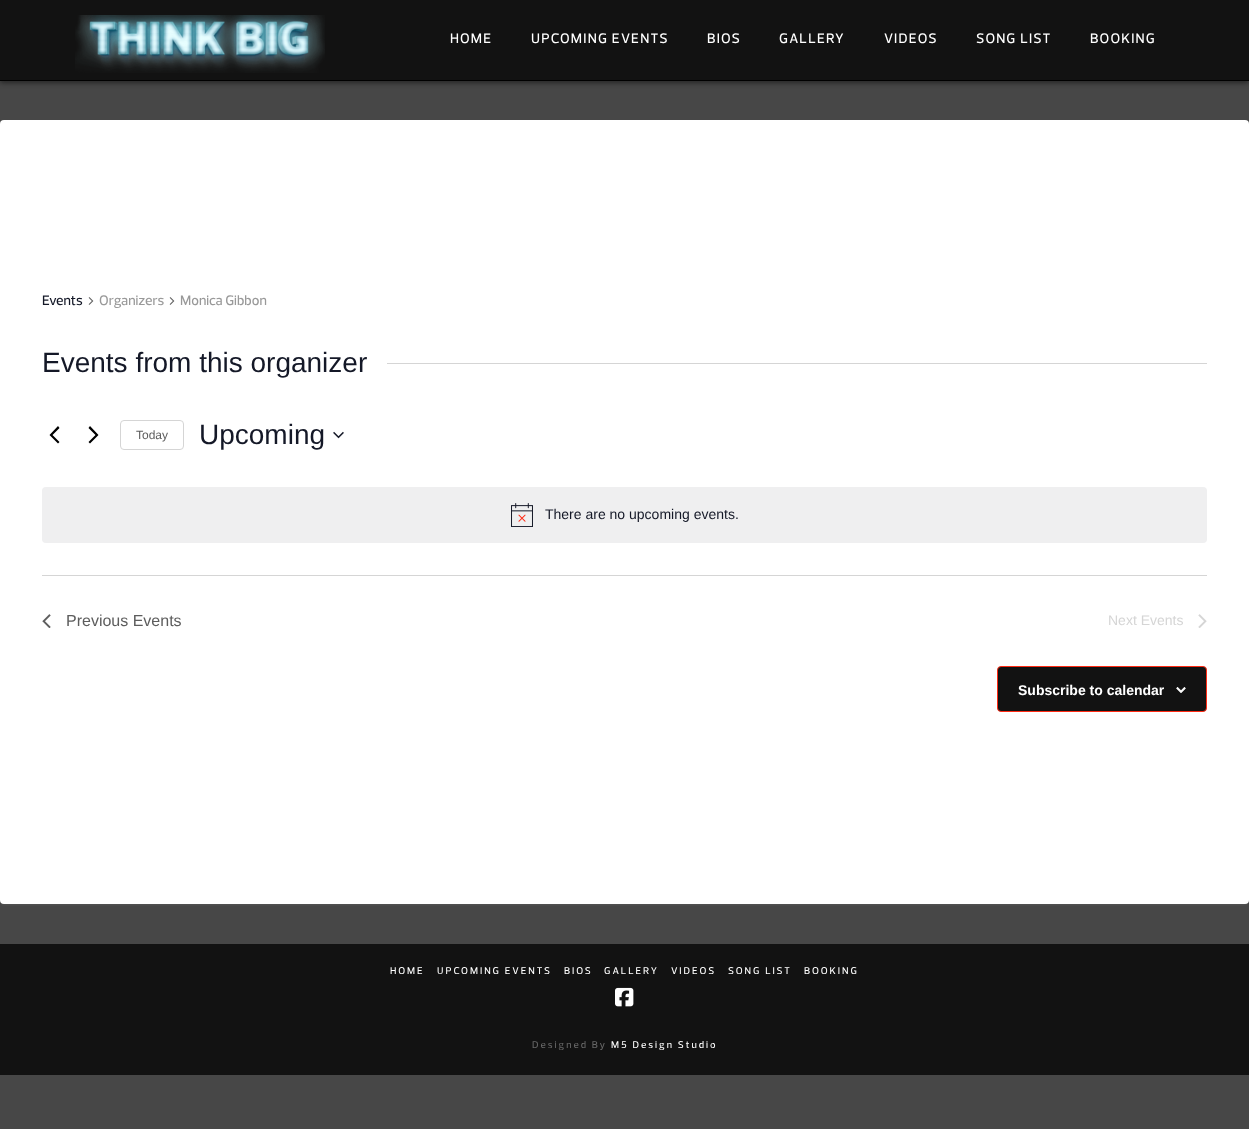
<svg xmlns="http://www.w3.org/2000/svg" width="1249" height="1129">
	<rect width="100%" height="100%" fill="#474747" />
	<rect x="0" y="2" width="1249" height="81" fill="#000000" fill-opacity="0.47" filter="blur(2.5px)" />
	<rect x="0" y="0" width="1249" height="80" fill="#121212" />
	<rect x="0" y="80" width="1249" height="1" fill="#000000" />
	<image x="75" y="15" width="250" height="58" href="assets/img1.png" />
	<g font-family="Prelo" font-size="14" font-weight="500" letter-spacing="1.25" fill="#FFFFFF">
		<text x="450" y="43">HOME</text>
		<text x="531" y="43">UPCOMING EVENTS</text>
		<text x="707" y="43">BIOS</text>
		<text x="779" y="43">GALLERY</text>
		<text x="884" y="43">VIDEOS</text>
		<text x="976" y="43">SONG LIST</text>
		<text x="1090" y="43">BOOKING</text>
	</g>
	<rect x="2" y="125" width="1245" height="780" rx="2" fill="#FFFFFF" fill-opacity="0.07" filter="blur(1px)" />
	<rect x="0" y="120" width="1249" height="784" rx="4" fill="#FFFFFF" />
	<text x="42" y="305" font-family="Prelo" font-size="14" font-weight="500" fill="#141827">Events</text>
	<image x="88" y="297" width="6" height="8" href="assets/img2.png" />
	<text x="99" y="305" font-family="Prelo" font-size="14" font-weight="500" fill="#999999">Organizers</text>
	<image x="169" y="297" width="6" height="8" href="assets/img2.png" />
	<text x="180" y="305" font-family="Prelo" font-size="14" font-weight="500" fill="#999999">Monica Gibbon</text>
	<text x="42" y="372" font-family="Liberation Sans" font-size="28" fill="#141827">Events from this organizer</text>
	<rect x="387" y="363" width="820" height="1" fill="#D5D5D5" />
	<path d="M59.5 442L58 443.5L49.5 435L58 426L59.5 428L52.5 435ZM88.5 428L90 426L98.5 435L90 443.5L88.5 442L95.5 435Z" fill="#000000" />
	<rect x="120.5" y="420.5" width="63" height="29" rx="3.5" fill="none" stroke="#D5D5D5" />
	<text x="136" y="439" font-family="Liberation Sans" font-size="12" fill="#5D5D5D">Today</text>
	<text x="199" y="444" font-family="Liberation Sans" font-size="28" fill="#141827">Upcoming</text>
	<image x="333" y="431" width="11" height="8" href="assets/img3.png" />
	<rect x="42" y="487" width="1165" height="56" rx="4" fill="#EFEFF0" />
	<image x="511" y="503" width="22" height="24" href="assets/img4.png" />
	<text x="545" y="519" font-family="Liberation Sans" font-size="14" fill="#141827">There are no upcoming events.</text>
	<rect x="42" y="575" width="1165" height="1" fill="#D5D5D5" />
	<image x="42" y="614" width="9" height="14" href="assets/img5.png" />
	<text x="66" y="626" font-family="Liberation Sans" font-size="16" fill="#5D5D5D">Previous Events</text>
	<text x="1108" y="625" font-family="Liberation Sans" font-size="14" fill="#D5D5D5">Next Events</text>
	<image x="1198" y="614" width="9" height="14" href="assets/img6.png" />
	<rect x="997.5" y="666.5" width="209" height="45" rx="3.5" fill="#121212" stroke="#FF2A13" />
	<text x="1018" y="695" font-family="Liberation Sans" font-size="14" font-weight="700" fill="#FFFFFF">Subscribe to calendar</text>
	<image x="1176" y="687" width="10" height="6" href="assets/img7.png" />
	<rect x="0" y="944" width="1249" height="131" fill="#121212" />
	<g font-family="Prelo" font-size="10" font-weight="500" letter-spacing="2" fill="#FFFFFF">
		<text x="390" y="974">HOME</text>
		<text x="437" y="974">UPCOMING EVENTS</text>
		<text x="564" y="974">BIOS</text>
		<text x="604" y="974">GALLERY</text>
		<text x="671" y="974">VIDEOS</text>
		<text x="728" y="974">SONG LIST</text>
		<text x="804" y="974">BOOKING</text>
	</g>
	<image x="615" y="987" width="19" height="20" href="assets/img8.png" />
	<text x="532" y="1048" font-family="Prelo" font-size="10" font-weight="500" letter-spacing="2" fill="#666666">Designed By</text>
	<text x="611" y="1048" font-family="Prelo" font-size="10" font-weight="500" letter-spacing="2" fill="#FFFFFF">M5 Design Studio</text>
</svg>
